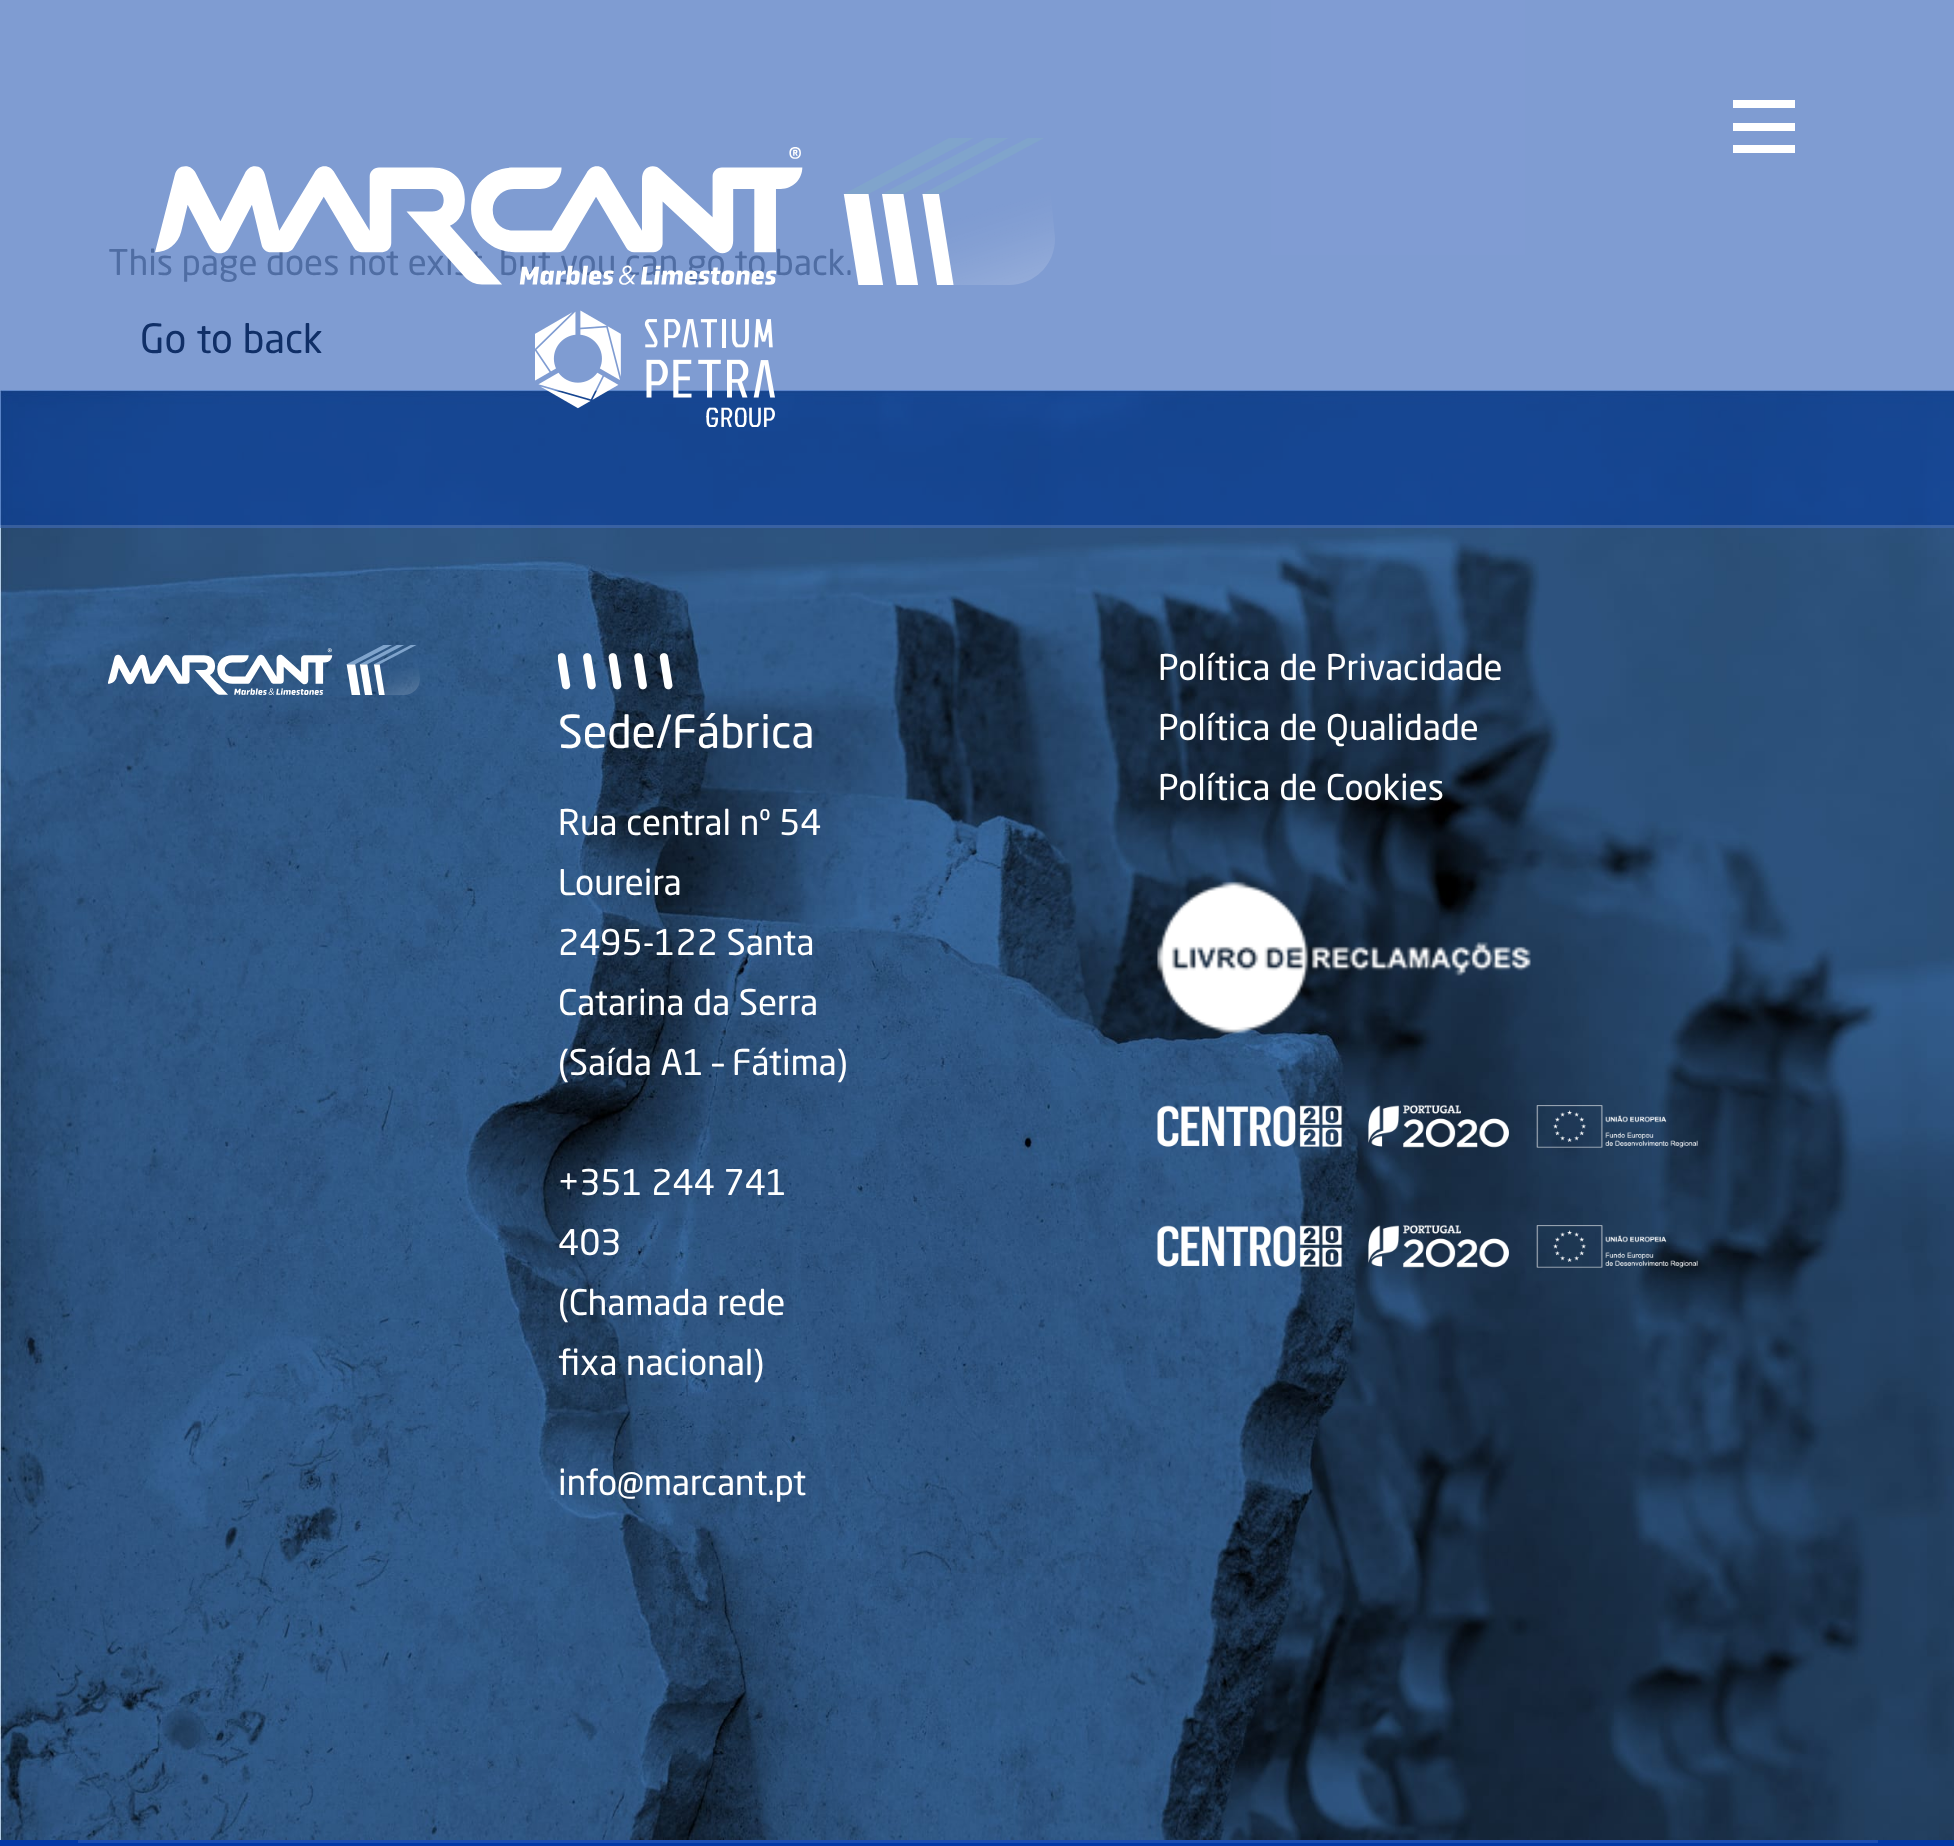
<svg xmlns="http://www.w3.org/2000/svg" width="1954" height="1846">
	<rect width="100%" height="100%" fill="#FFFFFF" />
	<text x="108" y="275" font-family="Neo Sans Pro" font-size="35" fill="#9FA0A1">This page does not exist, but you can go to back.</text>
	<text x="140" y="353" font-family="Neo Sans Pro" font-size="40" fill="#212529">Go to back</text>
	<image x="0" y="390" width="1954" height="1450" href="assets/img3.png" />
	<rect x="0" y="0" width="1954" height="528" fill="#0039A6" fill-opacity="0.5" />
	<rect x="1733" y="100" width="62" height="8" fill="#FFFFFF" />
	<rect x="1733" y="123" width="62" height="8" fill="#FFFFFF" />
	<rect x="1733" y="145" width="62" height="8" fill="#FFFFFF" />
	<image x="155" y="138" width="900" height="147" href="assets/img1.png" />
	<image x="535" y="310" width="240" height="117" href="assets/img2.png" />
	<rect x="0" y="525" width="1954" height="3" fill="#FFFFFF" fill-opacity="0.15" />
	<image x="108" y="645" width="312" height="50" href="assets/img4.png" />
	<image x="558" y="653" width="115" height="37" href="assets/img5.png" />
	<text x="558" y="748" font-family="Neo Sans Pro" font-size="45" fill="#FFFFFF">Sede/Fábrica</text>
	<g font-family="Neo Sans Pro" font-size="35" fill="#FFFFFF">
		<text x="558" y="835">Rua central nº 54</text>
		<text x="558" y="895">Loureira</text>
		<text x="558" y="955">2495-122 Santa</text>
		<text x="558" y="1015">Catarina da Serra</text>
		<text x="558" y="1075">(Saída A1 – Fátima)</text>
		<text x="558" y="1195">+351 244 741</text>
		<text x="558" y="1255">403</text>
		<text x="558" y="1315">(Chamada rede</text>
		<text x="558" y="1375">fixa nacional)</text>
		<text x="558" y="1495">info@marcant.pt</text>
		<text x="1158" y="680">Política de Privacidade</text>
		<text x="1158" y="740">Política de Qualidade</text>
		<text x="1158" y="800">Política de Cookies</text>
	</g>
	<image x="1157" y="881" width="374" height="153" href="assets/img6.png" />
	<image x="1157" y="1105" width="541" height="43" href="assets/img7.png" />
	<image x="1157" y="1225" width="541" height="43" href="assets/img8.png" />
	<rect x="0" y="1840" width="1954" height="6" fill="#0039A6" />
	<rect x="78" y="1840" width="1800" height="3" fill="#1A4DAF" />
</svg>
